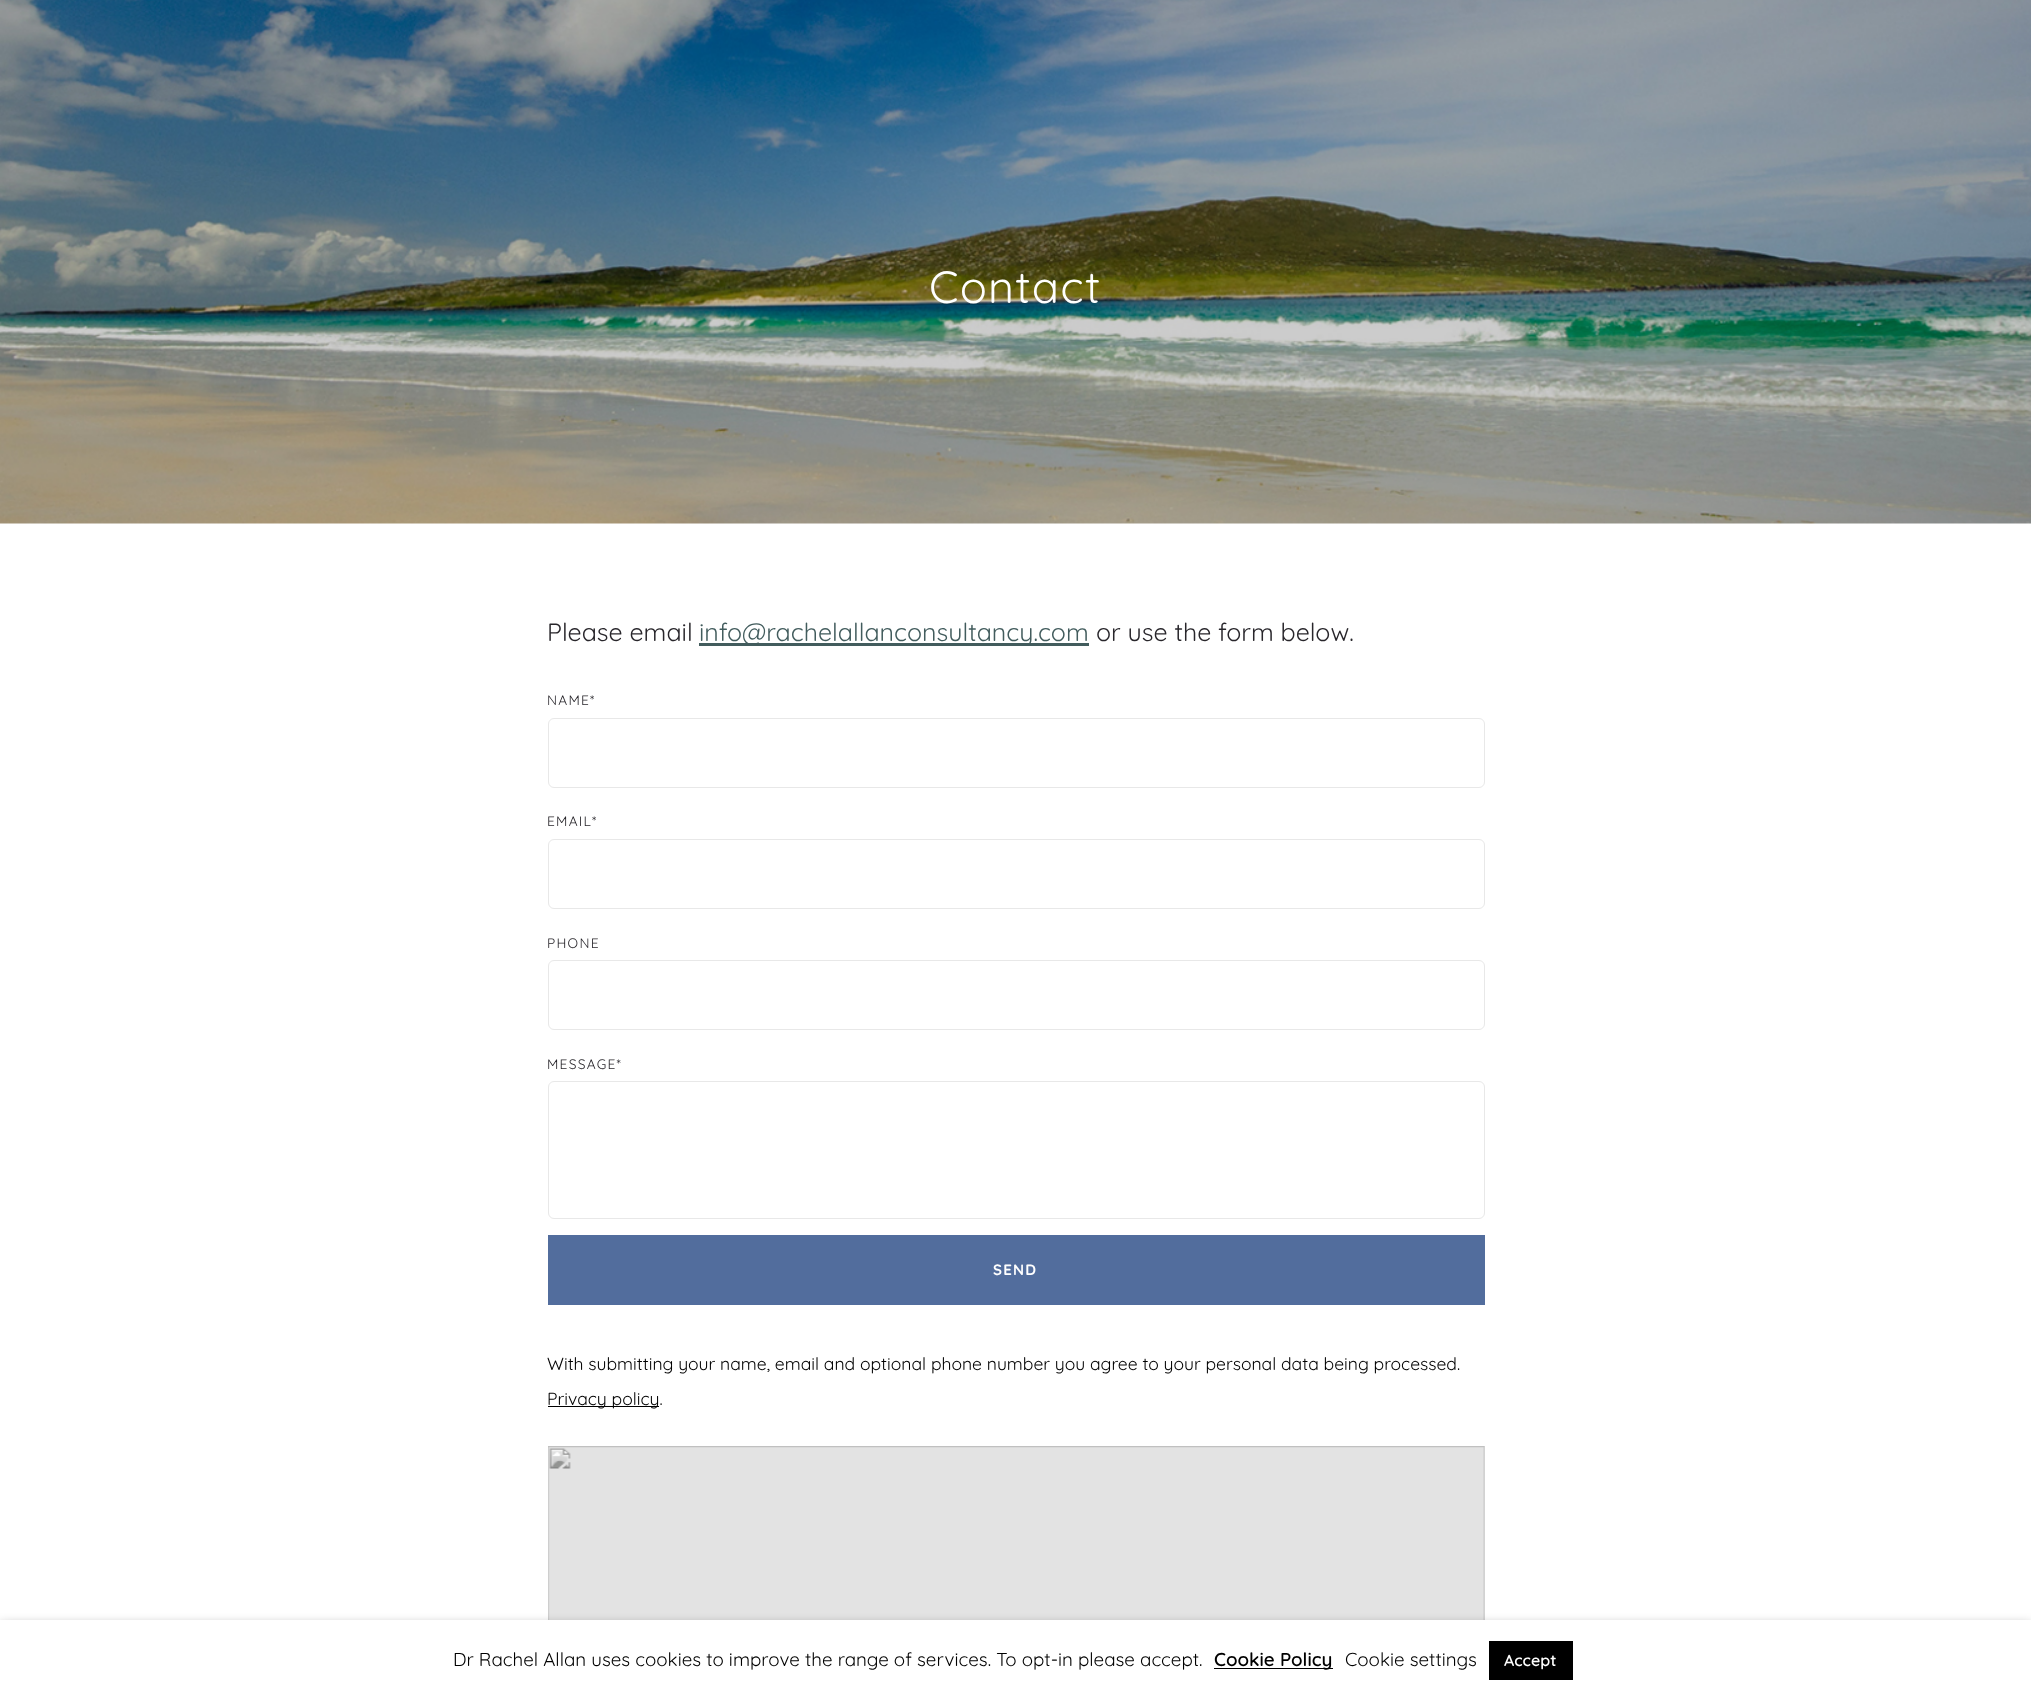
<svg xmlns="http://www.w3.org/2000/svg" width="2031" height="1701">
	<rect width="100%" height="100%" fill="#FFFFFF" />
	<image x="0" y="0" width="2031" height="524" href="assets/img1.png" />
	<text x="929" y="303" font-family="Quicksand" font-size="45" font-weight="300" letter-spacing="1.25" fill="#FFFFFF">Contact</text>
	<text x="547" y="641" font-family="Quicksand" font-size="25" font-weight="300" fill="#28262B">Please email</text>
	<rect x="699" y="643" width="390" height="3" fill="#425C5D" />
	<text x="699" y="641" font-family="Quicksand" font-size="25" font-weight="300" fill="#425C5D">info@rachelallanconsultancy.com</text>
	<text x="1096" y="641" font-family="Quicksand" font-size="25" font-weight="300" fill="#28262B">or use the form below.</text>
	<text x="547" y="705" font-family="Quicksand" font-size="13.75" font-weight="300" letter-spacing="1.25" fill="#28262B">NAME*</text>
	<rect x="548.5" y="718.5" width="936" height="69" rx="5.5" fill="none" stroke="#E8E8E8" />
	<text x="547" y="826" font-family="Quicksand" font-size="13.75" font-weight="300" letter-spacing="1.25" fill="#28262B">EMAIL*</text>
	<rect x="548.5" y="839.5" width="936" height="69" rx="5.5" fill="none" stroke="#E8E8E8" />
	<text x="547" y="948" font-family="Quicksand" font-size="13.75" font-weight="300" letter-spacing="1.25" fill="#28262B">PHONE</text>
	<rect x="548.5" y="960.5" width="936" height="69" rx="5.5" fill="none" stroke="#E8E8E8" />
	<text x="547" y="1069" font-family="Quicksand" font-size="13.75" font-weight="300" letter-spacing="1.25" fill="#28262B">MESSAGE*</text>
	<rect x="548.5" y="1081.5" width="936" height="137" rx="5.5" fill="none" stroke="#E8E8E8" />
	<rect x="548" y="1235" width="937" height="70" fill="#526D9D" />
	<text x="993" y="1275" font-family="Quicksand" font-size="15" font-weight="700" letter-spacing="1.25" fill="#FFFFFF">SEND</text>
	<text x="547" y="1370" font-family="Quicksand" font-size="17.5" font-weight="300" fill="#000000">With submitting your name, email and optional phone number you agree to your personal data being processed.</text>
	<rect x="548" y="1406" width="111" height="1" fill="#000000" />
	<text x="547" y="1405" font-family="Quicksand" font-size="17.5" font-weight="300" fill="#000000">Privacy policy.</text>
	<image x="548" y="1446" width="937" height="174" href="assets/img2.png" />
	<rect x="0" y="1626" width="2031" height="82" fill="#000000" fill-opacity="0.5" filter="blur(6px)" />
	<rect x="0" y="1620" width="2031" height="81" fill="#FFFFFF" />
	<text x="453" y="1666" font-family="Quicksand" font-size="18.75" font-weight="300" fill="#000000">Dr Rachel Allan uses cookies to improve the range of services. To opt-in please accept.</text>
	<rect x="1214" y="1668" width="119" height="1" fill="#000000" />
	<text x="1214" y="1666" font-family="Quicksand" font-size="18.75" font-weight="600" fill="#000000">Cookie Policy</text>
	<text x="1345" y="1666" font-family="Quicksand" font-size="18.75" font-weight="300" fill="#000000">Cookie settings</text>
	<rect x="1489" y="1641" width="84" height="39" fill="#000000" />
	<text x="1504" y="1666" font-family="Quicksand" font-size="16" font-weight="600" fill="#FFFFFF">Accept</text>
</svg>
